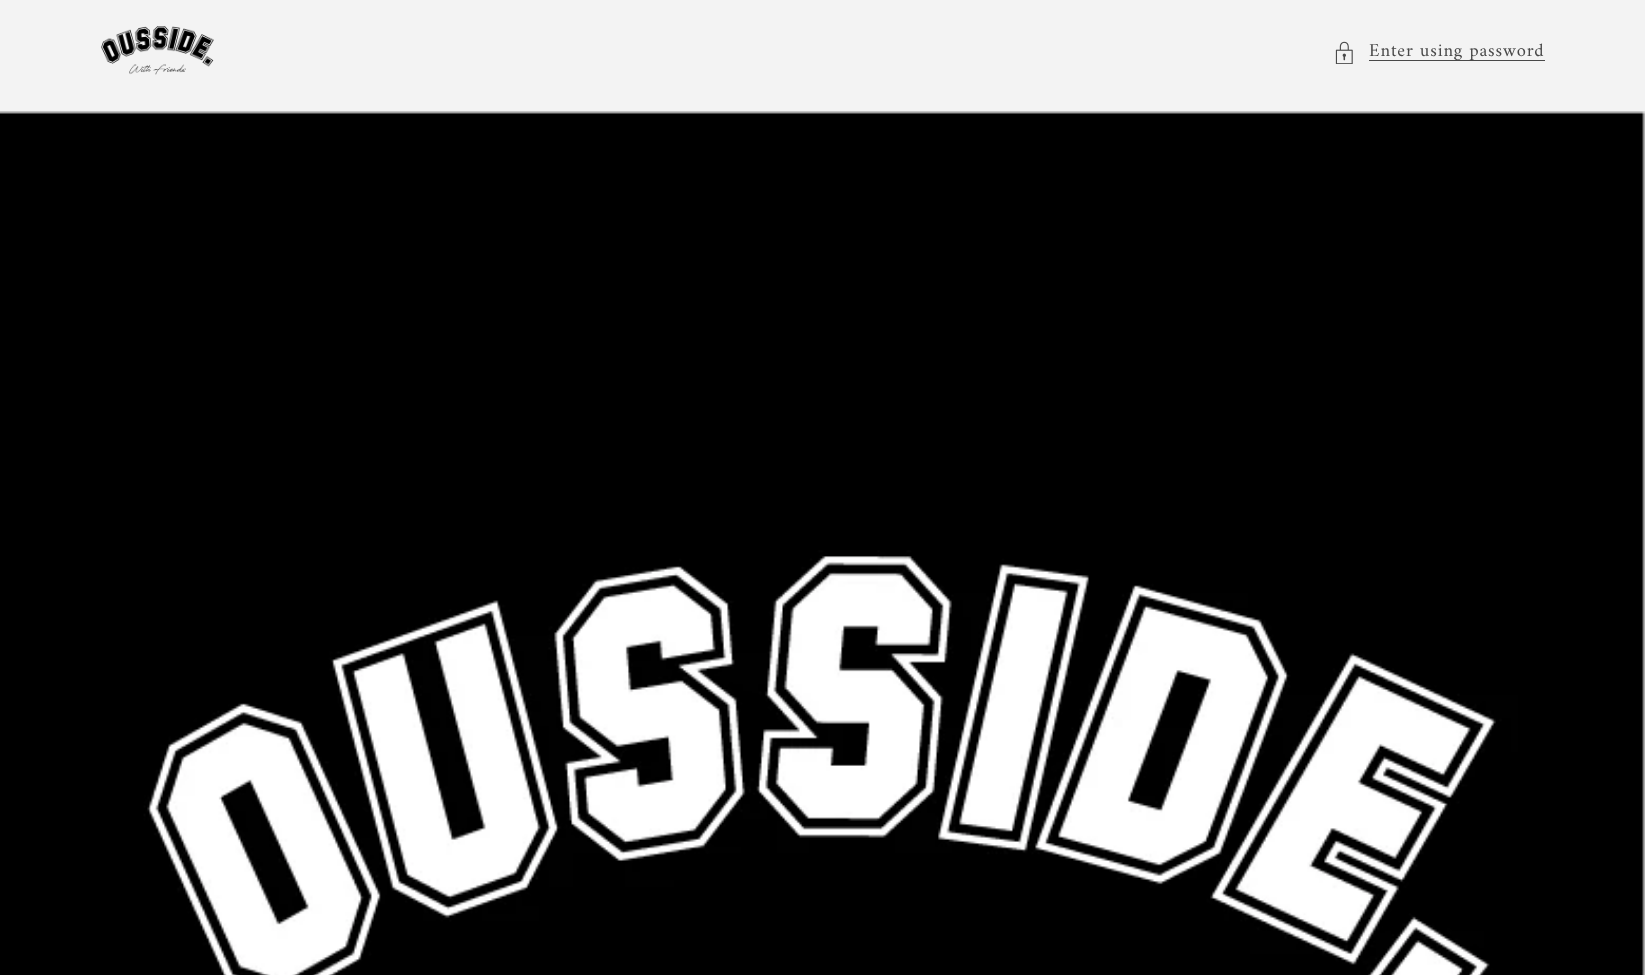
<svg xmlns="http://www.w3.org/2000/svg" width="1645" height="975">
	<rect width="100%" height="100%" fill="#F3F3F3" />
	<image x="101" y="26" width="113" height="49" href="assets/img1.png" />
	<image x="1335" y="41" width="18" height="23" href="assets/img2.png" />
	<rect x="1369" y="60" width="176" height="1" fill="#494949" />
	<text x="1369" y="56" font-family="Amiri" font-size="18.4" letter-spacing="0.9" fill="#494949">Enter using password</text>
	<rect x="0" y="111" width="1645" height="864" fill="#E6E6E6" />
	<image x="0" y="111" width="1645" height="864" href="assets/img3.png" />
</svg>
